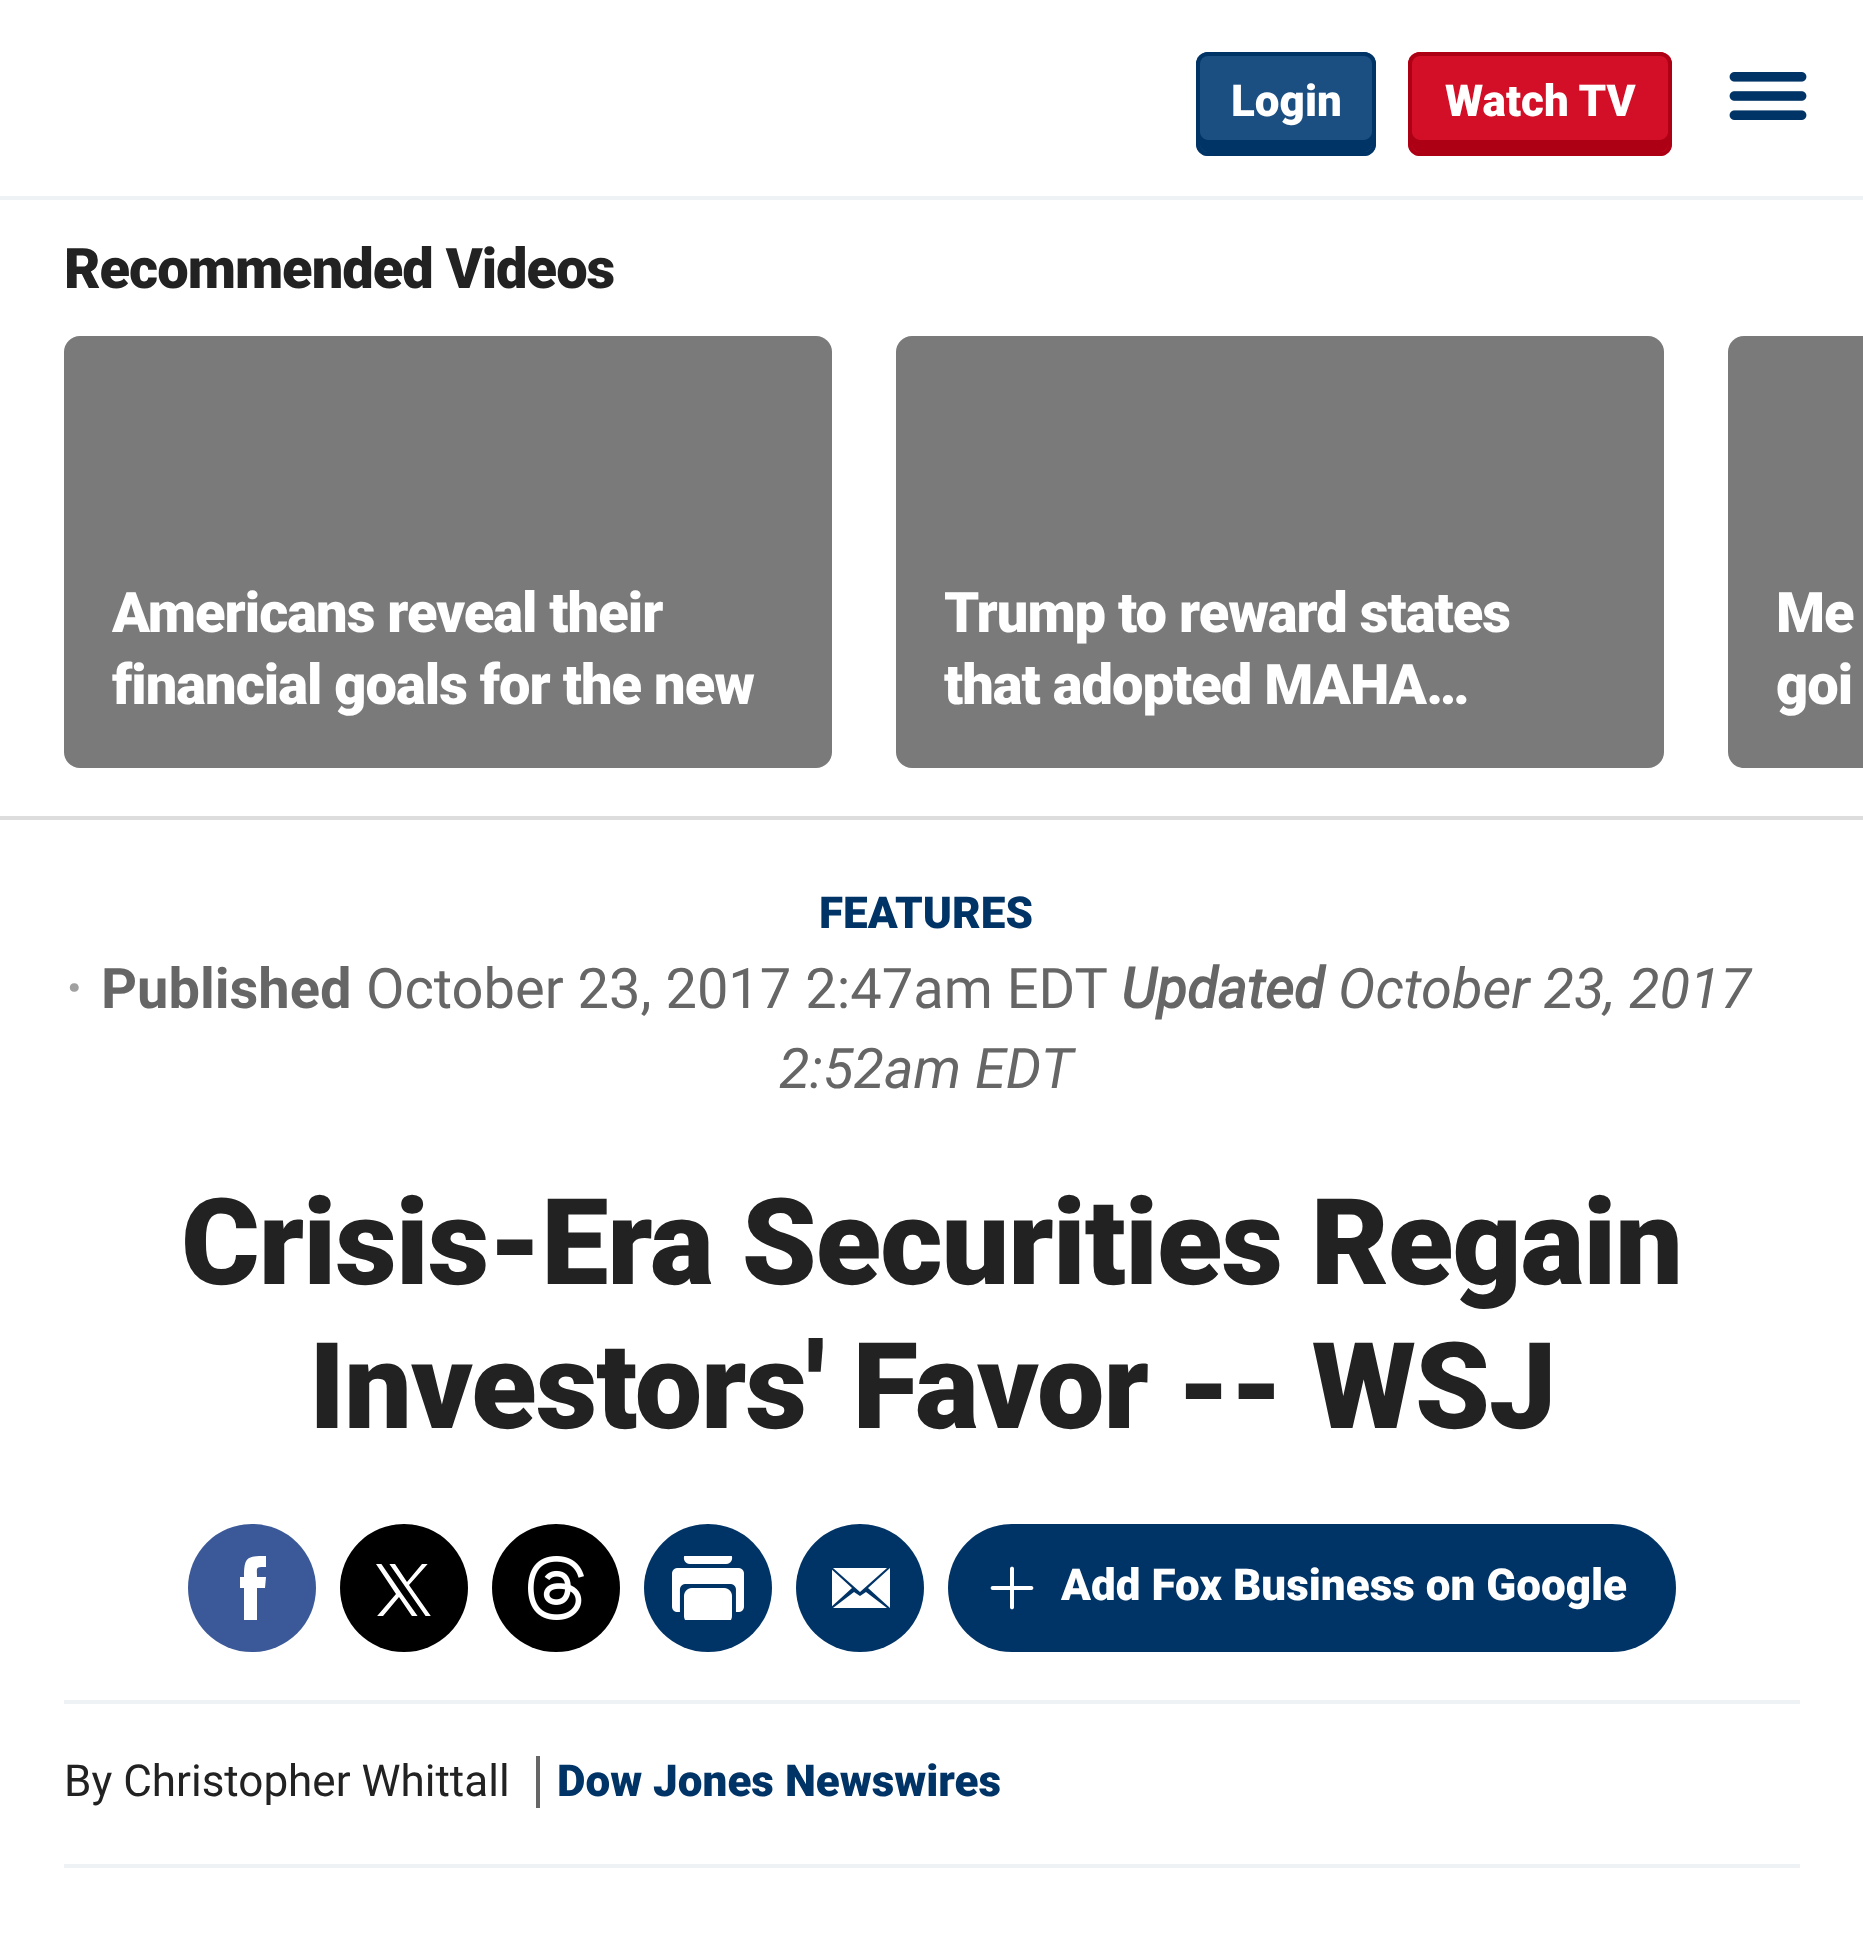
<svg xmlns="http://www.w3.org/2000/svg" width="1863" height="1957">
	<defs>
		<clipPath id="clip1"><rect x="240" y="1556" width="28" height="64" /></clipPath>
		<clipPath id="clip2"><rect x="372" y="1564" width="64" height="52" /></clipPath>
		<clipPath id="clip3"><rect x="832" y="1568" width="60" height="40" /></clipPath>
	</defs>
	<rect width="100%" height="100%" fill="#FFFFFF" />
	<rect x="0" y="196" width="1863" height="4" fill="#EFF2F5" />
	<rect x="1196" y="52" width="180" height="104" rx="12" fill="#1B4E81" />
	<path d="M1200 132V144C1200 148 1204 152 1208 152H1364C1368 152 1372 148 1372 144V132C1372 136 1368 140 1364 140H1208C1204 140 1200 136 1200 132Z" fill="#003366" />
	<rect x="1198" y="54" width="176" height="100" rx="10" fill="none" stroke="#003366" stroke-width="4" />
	<text x="1231" y="116" font-family="Roboto" font-size="44" font-weight="900" fill="#FFFFFF">Login</text>
	<rect x="1408" y="52" width="264" height="104" rx="12" fill="#D20F26" />
	<path d="M1412 132V144C1412 148 1416 152 1420 152H1660C1664 152 1668 148 1668 144V132C1668 136 1664 140 1660 140H1420C1416 140 1412 136 1412 132Z" fill="#AE0015" />
	<rect x="1410" y="54" width="260" height="100" rx="10" fill="none" stroke="#AE0015" stroke-width="4" />
	<text x="1445" y="116" font-family="Roboto" font-size="44" font-weight="900" fill="#FFFFFF">Watch TV</text>
	<image x="1729" y="72" width="78" height="48" href="assets/img1.png" />
	<rect x="0" y="816" width="1863" height="4" fill="#DDDDDD" />
	<text x="64" y="288" font-family="Roboto" font-size="56" font-weight="900" letter-spacing="-1" fill="#222222">Recommended Videos</text>
	<rect x="64" y="336" width="768" height="432" rx="16" fill="#F4F4F4" />
	<rect x="64" y="336" width="768" height="432" rx="16" fill="#000000" fill-opacity="0.5" />
	<g font-family="Roboto" font-size="56" font-weight="900" letter-spacing="-1" fill="#FFFFFF">
		<text x="112" y="632">Americans reveal their</text>
		<text x="112" y="704">financial goals for the new</text>
	</g>
	<rect x="896" y="336" width="768" height="432" rx="16" fill="#F4F4F4" />
	<rect x="896" y="336" width="768" height="432" rx="16" fill="#000000" fill-opacity="0.5" />
	<g font-family="Roboto" font-size="56" font-weight="900" letter-spacing="-1" fill="#FFFFFF">
		<text x="944" y="632">Trump to reward states</text>
		<text x="944" y="704">that adopted MAHA…</text>
	</g>
	<path d="M1744 336H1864V768H1744C1735 768 1728 761 1728 752V352C1728 343 1735 336 1744 336Z" fill="#F4F4F4" />
	<path d="M1744 336H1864V768H1744C1735 768 1728 761 1728 752V352C1728 343 1735 336 1744 336Z" fill="#000000" fill-opacity="0.5" />
	<g font-family="Roboto" font-size="56" font-weight="900" letter-spacing="-1" fill="#FFFFFF">
		<text x="1776" y="632">Me</text>
		<text x="1776" y="704">goi</text>
	</g>
	<text x="819" y="928" font-family="Roboto" font-size="44" font-weight="900" fill="#003366">FEATURES</text>
	<text x="64" y="1016" font-family="Roboto" font-size="80" fill="#A0A0A0">·</text>
	<text x="101" y="1008" font-family="Roboto" font-size="56" font-weight="700" fill="#666666">Published</text>
	<text x="366" y="1008" font-family="Roboto" font-size="56" fill="#666666">October 23, 2017 2:47am EDT</text>
	<text x="1121" y="1008" font-family="Roboto" font-size="56" font-weight="700" font-style="italic" fill="#666666">Updated</text>
	<g font-family="Roboto" font-size="56" font-style="italic" fill="#666666">
		<text x="1338" y="1008">October 23, 2017</text>
		<text x="779" y="1088">2:52am EDT</text>
	</g>
	<g font-family="Roboto" font-size="120" font-weight="900" letter-spacing="-1" fill="#222222">
		<text x="181" y="1284">Crisis-Era Securities Regain</text>
		<text x="309" y="1428">Investors' Favor -- WSJ</text>
	</g>
	<rect x="64" y="1864" width="1736" height="4" fill="#EFF2F5" />
	<circle cx="252" cy="1588" r="64" fill="#3B5998" />
	<g clip-path="url(#clip1)">
		<path d="M266 1577L265 1588H257V1620H244V1588H238V1577H244C244 1557 247 1556 266 1556V1567C255 1567 257 1567 257 1577Z" fill="#FFFFFF" />
	</g>
	<circle cx="404" cy="1588" r="64" fill="#000000" />
	<g clip-path="url(#clip2)">
		<path d="M409 1585L433 1558H427L407 1582L391 1558H372L396 1594L372 1622H378L399 1597L416 1622H435ZM402 1594L380 1562H388L427 1618H419Z" fill="#FFFFFF" />
	</g>
	<circle cx="556" cy="1588" r="64" fill="#000000" />
	<image x="528" y="1556" width="56" height="64" href="assets/img2.png" />
	<circle cx="708" cy="1588" r="64" fill="#003366" />
	<image x="672" y="1556" width="72" height="64" href="assets/img3.png" />
	<circle cx="860" cy="1588" r="64" fill="#003366" />
	<g clip-path="url(#clip3)">
		<path d="M868 1588L890 1568V1608ZM833 1568H887L860 1592ZM830 1608V1568L852 1588ZM860 1596L866 1592L887 1608H833L854 1592Z" fill="#FFFFFF" />
	</g>
	<rect x="948" y="1524" width="728" height="128" rx="64" fill="#003366" />
	<image x="990" y="1566" width="44" height="44" href="assets/img4.png" />
	<text x="1061" y="1600" font-family="Roboto" font-size="44" font-weight="900" fill="#FFFFFF">Add Fox Business on Google</text>
	<rect x="64" y="1700" width="1736" height="4" fill="#EFF2F5" />
	<text x="64" y="1796" font-family="Roboto" font-size="44" fill="#222222">By Christopher Whittall</text>
	<text x="557" y="1796" font-family="Roboto" font-size="44" font-weight="900" fill="#003366">Dow Jones Newswires</text>
	<rect x="536" y="1756" width="4" height="52" fill="#666666" />
</svg>
